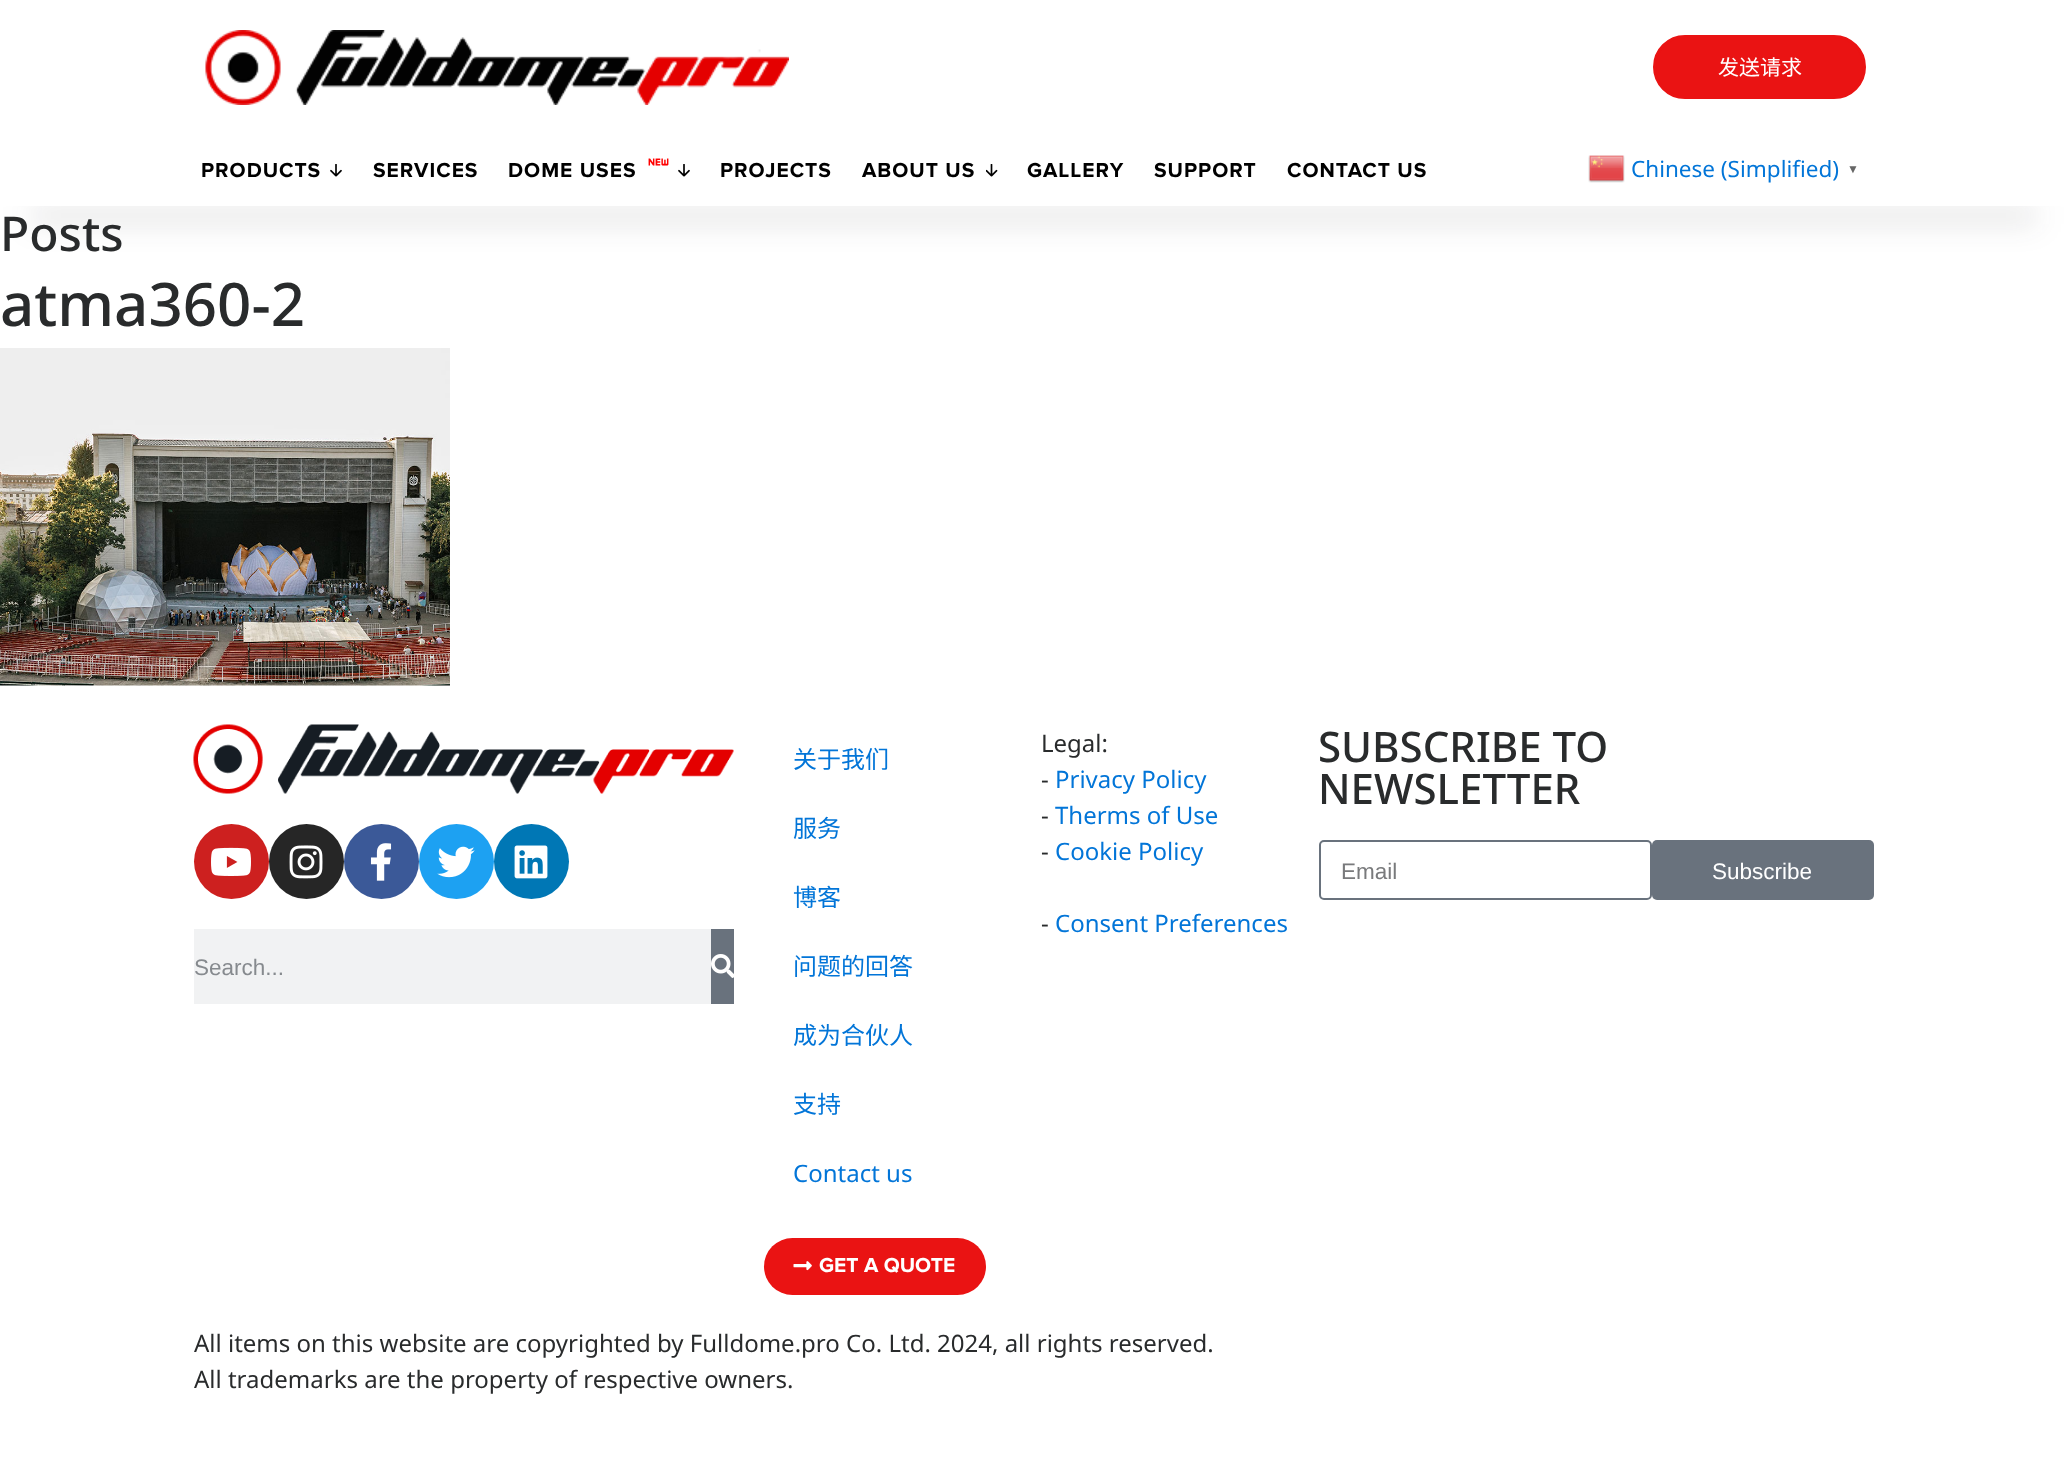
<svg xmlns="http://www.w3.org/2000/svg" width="2066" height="1481">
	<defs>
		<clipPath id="clip1"><path d="M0 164H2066V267H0ZM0 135H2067V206H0Z" clip-rule="evenodd" /></clipPath>
	</defs>
	<rect width="100%" height="100%" fill="#FFFFFF" />
	<image x="205" y="30" width="584" height="75" href="assets/img1.png" />
	<rect x="1654.5" y="36.5" width="210" height="61" rx="30.5" fill="#EA1313" stroke="#EA1313" stroke-width="3" />
	<text x="1718" y="75" font-family="Noto Sans CJK SC" font-size="21" fill="#FFFFFF">发送请求</text>
	<g clip-path="url(#clip1)">
		<rect x="30" y="210" width="2007" height="11" fill="#212327" fill-opacity="0.2" filter="blur(15px)" />
	</g>
	<text x="201" y="177" font-family="Proxima Nova" font-size="21" font-weight="700" letter-spacing="1" fill="#000000">PRODUCTS</text>
	<image x="330" y="164" width="12" height="13" href="assets/img2.png" />
	<g font-family="Proxima Nova" font-size="21" font-weight="700" letter-spacing="1" fill="#000000">
		<text x="373" y="177">SERVICES</text>
		<text x="508" y="177">DOME USES</text>
	</g>
	<image x="648" y="158" width="21" height="8" href="assets/img3.png" />
	<image x="678" y="164" width="12" height="13" href="assets/img2.png" />
	<g font-family="Proxima Nova" font-size="21" font-weight="700" letter-spacing="1" fill="#000000">
		<text x="720" y="177">PROJECTS</text>
		<text x="862" y="177">ABOUT US</text>
	</g>
	<image x="986" y="164" width="12" height="13" href="assets/img4.png" />
	<g font-family="Proxima Nova" font-size="21" font-weight="700" letter-spacing="1" fill="#000000">
		<text x="1027" y="177">GALLERY</text>
		<text x="1154" y="177">SUPPORT</text>
		<text x="1287" y="177">CONTACT US</text>
	</g>
	<image x="1588" y="155" width="37" height="28" href="assets/img5.png" />
	<text x="1631" y="177" font-family="Noto Sans" font-size="22.5" fill="#0275D8">Chinese (Simplified)</text>
	<text x="1847" y="173" font-family="Liberation Sans" font-size="12" font-weight="700" fill="#666666">▼</text>
	<text x="0" y="251" font-family="Noto Sans" font-size="48" font-weight="500" fill="#292B2C">Posts</text>
	<text x="0" y="326" font-family="Noto Sans" font-size="60" font-weight="500" fill="#292B2C">atma360-2</text>
	<image x="0" y="348" width="450" height="338" href="assets/img6.png" />
	<image x="193" y="724" width="541" height="70" href="assets/img7.png" />
	<circle cx="231.5" cy="861.5" r="37.5" fill="#CD201F" />
	<image x="211" y="847" width="40" height="29" href="assets/img8.png" />
	<circle cx="306.5" cy="861.5" r="37.5" fill="#262626" />
	<image x="289" y="845" width="34" height="34" href="assets/img9.png" />
	<circle cx="381.5" cy="861.5" r="37.5" fill="#3B5998" />
	<image x="370" y="843" width="22" height="38" href="assets/img10.png" />
	<circle cx="456.5" cy="861.5" r="37.5" fill="#1DA1F2" />
	<image x="437" y="846" width="38" height="32" href="assets/img11.png" />
	<circle cx="531.5" cy="861.5" r="37.5" fill="#0077B5" />
	<image x="514" y="845" width="34" height="34" href="assets/img12.png" />
	<rect x="194" y="929" width="517" height="75" fill="#F1F2F3" />
	<text x="194" y="975" font-family="Liberation Sans" font-size="22.5" fill="#868A8E">Search...</text>
	<rect x="711" y="929" width="23" height="75" fill="#69727D" />
	<image x="711" y="954" width="23" height="24" href="assets/img13.png" />
	<g font-family="Noto Sans CJK SC" font-size="24" fill="#0275D8">
		<text x="793" y="768">关于我们</text>
		<text x="793" y="837">服务</text>
		<text x="793" y="906">博客</text>
		<text x="793" y="975">问题的回答</text>
		<text x="793" y="1044">成为合伙人</text>
		<text x="793" y="1113">支持</text>
	</g>
	<text x="793" y="1182" font-family="Noto Sans" font-size="24" fill="#0275D8">Contact us</text>
	<rect x="764" y="1238" width="222" height="57" rx="28.5" fill="#EA1313" />
	<image x="793" y="1261" width="19" height="10" href="assets/img14.png" />
	<text x="819" y="1272" font-family="Proxima Nova" font-size="21" font-weight="700" fill="#FFFFFF">GET A QUOTE</text>
	<g font-family="Noto Sans" font-size="24" fill="#292B2C">
		<text x="1041" y="752">Legal:</text>
		<text x="1041" y="788">-</text>
	</g>
	<text x="1055" y="788" font-family="Noto Sans" font-size="24" fill="#0275D8">Privacy Policy</text>
	<text x="1041" y="824" font-family="Noto Sans" font-size="24" fill="#292B2C">-</text>
	<text x="1055" y="824" font-family="Noto Sans" font-size="24" fill="#0275D8">Therms of Use</text>
	<text x="1041" y="860" font-family="Noto Sans" font-size="24" fill="#292B2C">-</text>
	<text x="1055" y="860" font-family="Noto Sans" font-size="24" fill="#0275D8">Cookie Policy</text>
	<text x="1041" y="932" font-family="Noto Sans" font-size="24" fill="#292B2C">-</text>
	<text x="1055" y="932" font-family="Noto Sans" font-size="24" fill="#0275D8">Consent Preferences</text>
	<g font-family="Noto Sans" font-size="42" font-weight="500" fill="#292B2C">
		<text x="1318" y="762">SUBSCRIBE TO</text>
		<text x="1318" y="804">NEWSLETTER</text>
	</g>
	<rect x="1320" y="841" width="331" height="58" rx="4" fill="none" stroke="#69727D" stroke-width="2" />
	<text x="1341" y="879" font-family="Liberation Sans" font-size="22.5" fill="#797A7C">Email</text>
	<rect x="1652" y="840" width="222" height="60" rx="5" fill="#69727D" />
	<text x="1712" y="879" font-family="Liberation Sans" font-size="22.5" fill="#FFFFFF">Subscribe</text>
	<g font-family="Noto Sans" font-size="24" fill="#292B2C">
		<text x="194" y="1352">All items on this website are copyrighted by Fulldome.pro Co. Ltd. 2024, all rights reserved.</text>
		<text x="194" y="1388">All trademarks are the property of respective owners.</text>
	</g>
</svg>
